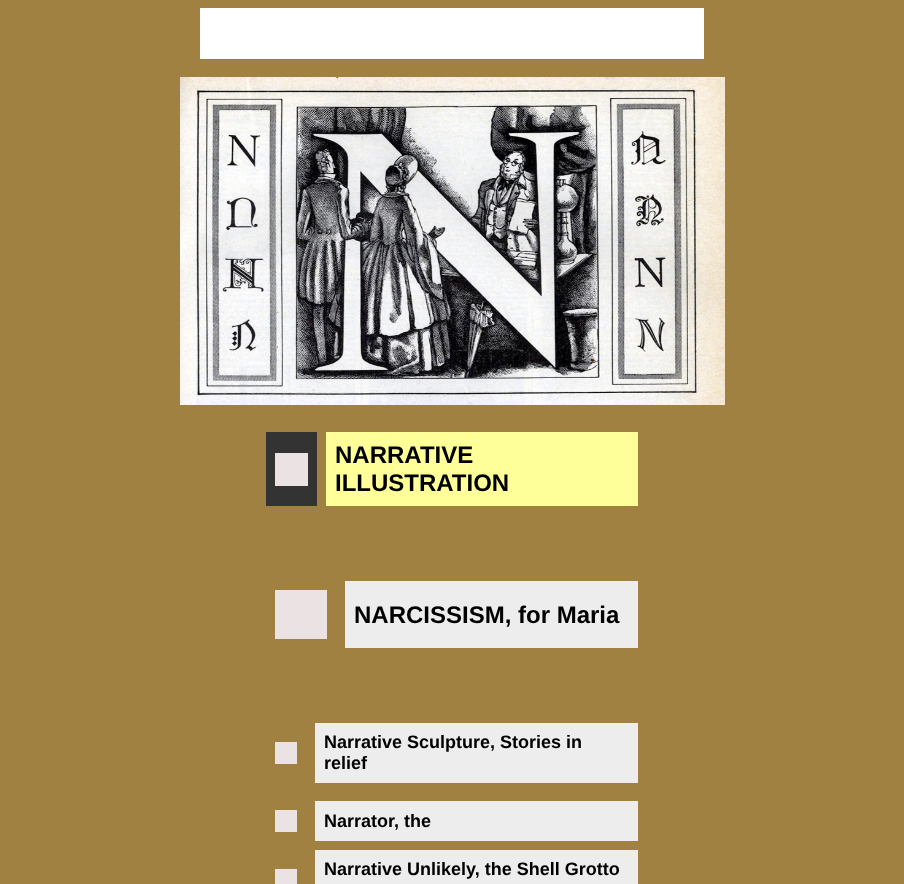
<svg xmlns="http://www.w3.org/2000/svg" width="904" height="884">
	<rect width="100%" height="100%" fill="#A18141" />
	<rect x="200" y="8" width="504" height="51" fill="#FFFFFF" />
	<image x="180" y="77" width="545" height="328" href="assets/img1.png" />
	<rect x="266" y="432" width="51" height="74" fill="#333333" />
	<rect x="275" y="453" width="33" height="33" fill="#EBE2E3" />
	<rect x="326" y="432" width="312" height="74" fill="#FFFF99" />
	<g font-family="Liberation Sans" font-size="24" font-weight="700" fill="#000000">
		<text x="335" y="463">NARRATIVE</text>
		<text x="335" y="491">ILLUSTRATION</text>
	</g>
	<rect x="275" y="590" width="52" height="49" fill="#EBE2E3" />
	<rect x="345" y="581" width="293" height="67" fill="#EDEDED" />
	<text x="354" y="623" font-family="Liberation Sans" font-size="24" font-weight="700" fill="#000000">NARCISSISM, for Maria</text>
	<rect x="275" y="742" width="22" height="22" fill="#EBE2E3" />
	<rect x="315" y="723" width="323" height="60" fill="#EDEDED" />
	<g font-family="Liberation Sans" font-size="18" font-weight="700" fill="#000000">
		<text x="324" y="748">Narrative Sculpture, Stories in</text>
		<text x="324" y="769">relief</text>
	</g>
	<rect x="275" y="810" width="22" height="22" fill="#EBE2E3" />
	<rect x="315" y="801" width="323" height="40" fill="#EDEDED" />
	<text x="324" y="827" font-family="Liberation Sans" font-size="18" font-weight="700" fill="#000000">Narrator, the</text>
	<rect x="275" y="869" width="22" height="15" fill="#EBE2E3" />
	<rect x="315" y="850" width="323" height="34" fill="#EDEDED" />
	<text x="324" y="875" font-family="Liberation Sans" font-size="18" font-weight="700" fill="#000000">Narrative Unlikely, the Shell Grotto</text>
</svg>
